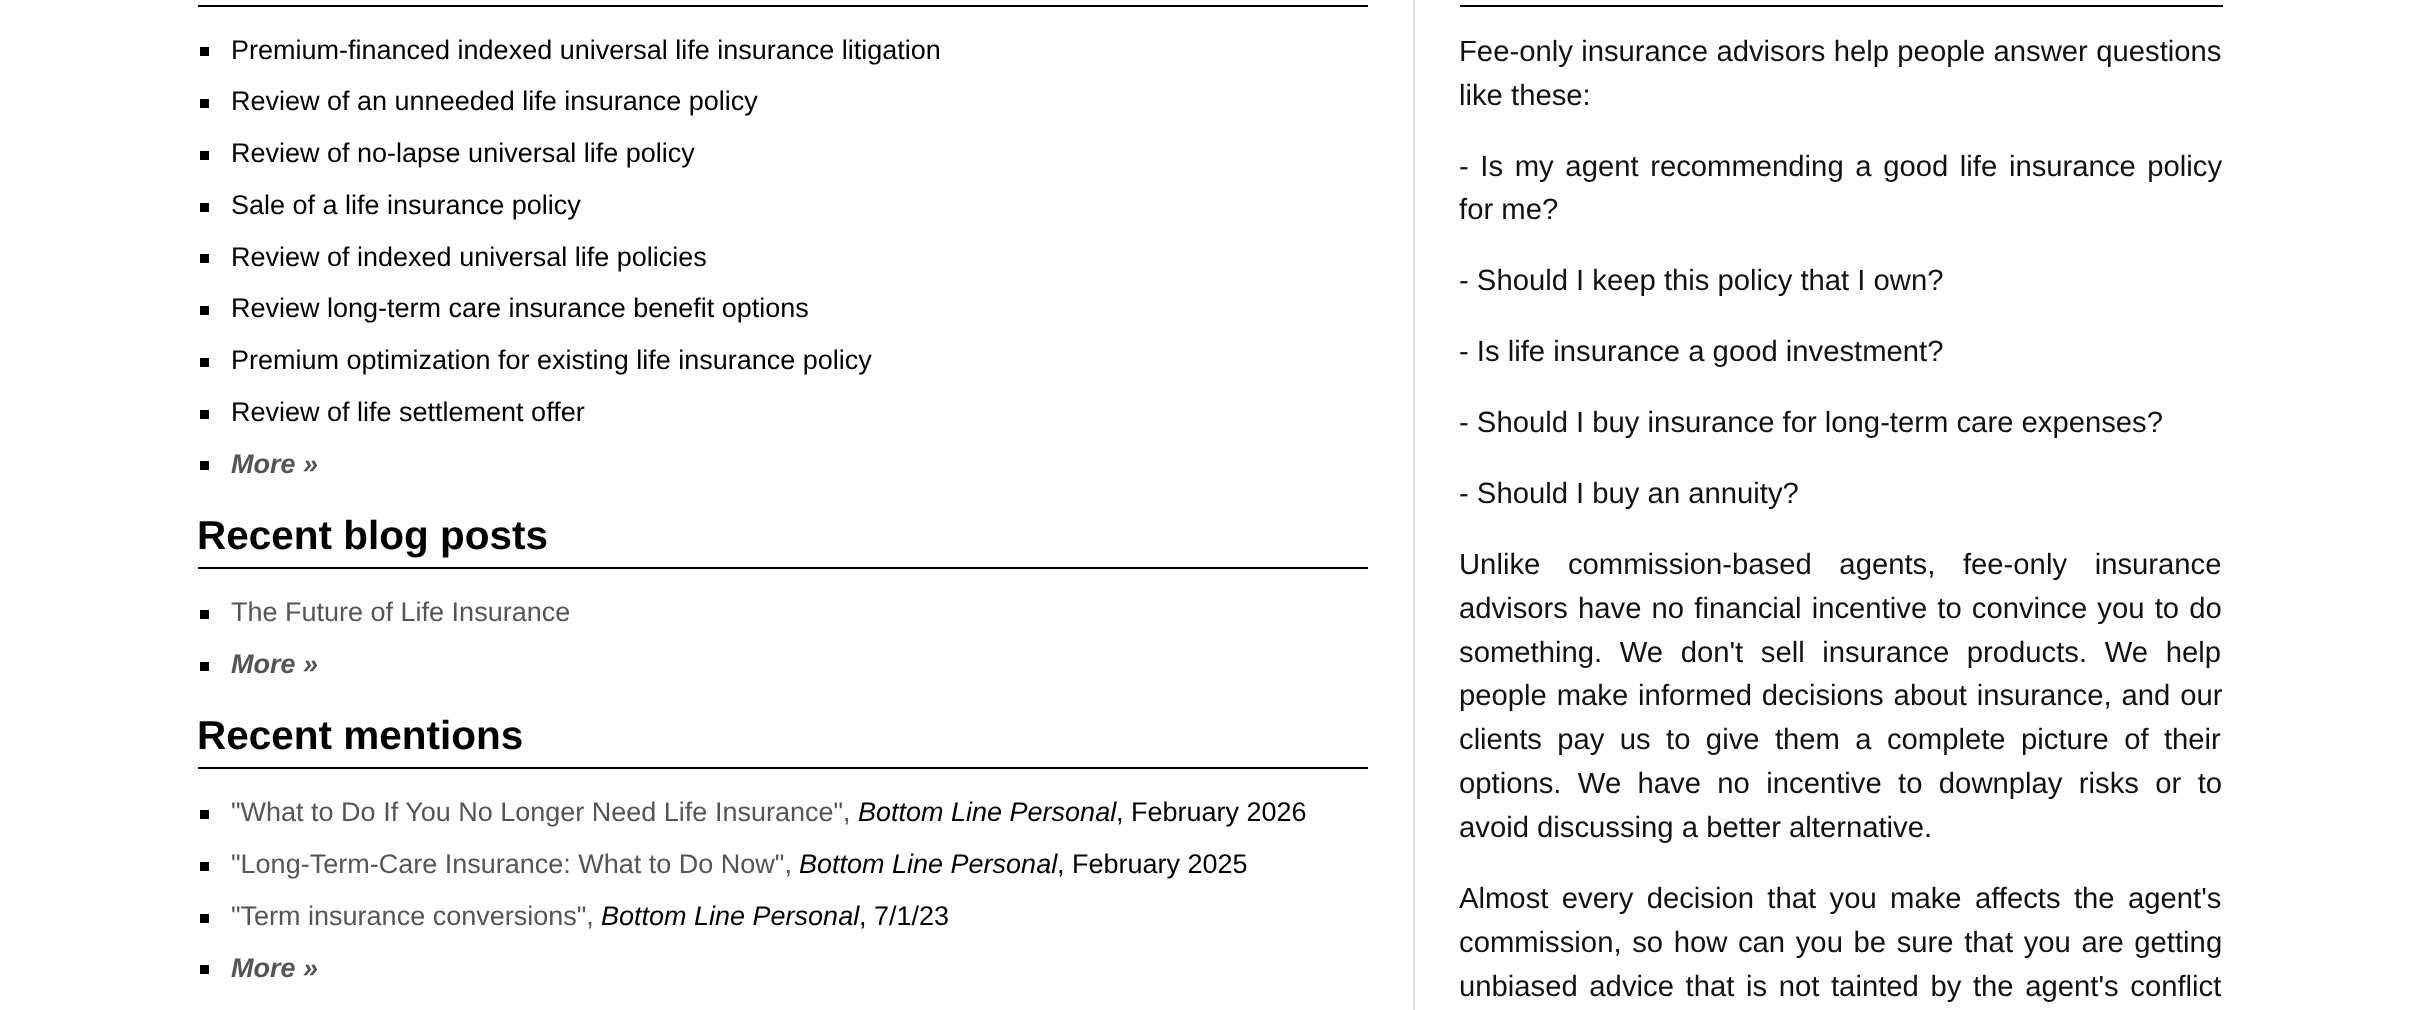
<svg xmlns="http://www.w3.org/2000/svg" width="2417" height="1010">
	<rect width="100%" height="100%" fill="#FFFFFF" />
	<rect x="1413" y="0" width="2" height="1010" fill="#DDDDDD" />
	<rect x="198" y="5" width="1170" height="2" fill="#000000" />
	<rect x="200" y="47" width="9" height="9" fill="#000000" />
	<text x="231" y="59" font-family="Liberation Sans" font-size="27" fill="#000000">Premium-financed indexed universal life insurance litigation</text>
	<rect x="200" y="99" width="9" height="9" fill="#000000" />
	<text x="231" y="110" font-family="Liberation Sans" font-size="27" fill="#000000">Review of an unneeded life insurance policy</text>
	<rect x="200" y="151" width="9" height="9" fill="#000000" />
	<text x="231" y="162" font-family="Liberation Sans" font-size="27" fill="#000000">Review of no-lapse universal life policy</text>
	<rect x="200" y="203" width="9" height="9" fill="#000000" />
	<text x="231" y="214" font-family="Liberation Sans" font-size="27" fill="#000000">Sale of a life insurance policy</text>
	<rect x="200" y="254" width="9" height="9" fill="#000000" />
	<text x="231" y="266" font-family="Liberation Sans" font-size="27" fill="#000000">Review of indexed universal life policies</text>
	<rect x="200" y="306" width="9" height="9" fill="#000000" />
	<text x="231" y="317" font-family="Liberation Sans" font-size="27" fill="#000000">Review long-term care insurance benefit options</text>
	<rect x="200" y="358" width="9" height="9" fill="#000000" />
	<text x="231" y="369" font-family="Liberation Sans" font-size="27" fill="#000000">Premium optimization for existing life insurance policy</text>
	<rect x="200" y="410" width="9" height="9" fill="#000000" />
	<text x="231" y="421" font-family="Liberation Sans" font-size="27" fill="#000000">Review of life settlement offer</text>
	<rect x="200" y="461" width="9" height="9" fill="#000000" />
	<text x="231" y="473" font-family="Liberation Sans" font-size="27" font-weight="700" font-style="italic" fill="#555555">More »</text>
	<rect x="198" y="567" width="1170" height="2" fill="#000000" />
	<text x="197" y="549" font-family="Liberation Sans" font-size="40.5" font-weight="700" fill="#000000">Recent blog posts</text>
	<rect x="200" y="610" width="9" height="9" fill="#000000" />
	<text x="231" y="621" font-family="Liberation Sans" font-size="27" fill="#555555">The Future of Life Insurance</text>
	<rect x="200" y="662" width="9" height="9" fill="#000000" />
	<text x="231" y="673" font-family="Liberation Sans" font-size="27" font-weight="700" font-style="italic" fill="#555555">More »</text>
	<rect x="198" y="767" width="1170" height="2" fill="#000000" />
	<text x="197" y="749" font-family="Liberation Sans" font-size="40.5" font-weight="700" fill="#000000">Recent mentions</text>
	<rect x="200" y="810" width="9" height="9" fill="#000000" />
	<text x="231" y="821" font-family="Liberation Sans" font-size="27" fill="#555555">"What to Do If You No Longer Need Life Insurance",</text>
	<text x="858" y="821" font-family="Liberation Sans" font-size="27" font-style="italic" fill="#000000">Bottom Line Personal</text>
	<text x="1116" y="821" font-family="Liberation Sans" font-size="27" fill="#000000">, February 2026</text>
	<rect x="200" y="862" width="9" height="9" fill="#000000" />
	<text x="231" y="873" font-family="Liberation Sans" font-size="27" fill="#555555">"Long-Term-Care Insurance: What to Do Now",</text>
	<text x="799" y="873" font-family="Liberation Sans" font-size="27" font-style="italic" fill="#000000">Bottom Line Personal</text>
	<text x="1057" y="873" font-family="Liberation Sans" font-size="27" fill="#000000">, February 2025</text>
	<rect x="200" y="914" width="9" height="9" fill="#000000" />
	<text x="231" y="925" font-family="Liberation Sans" font-size="27" fill="#555555">"Term insurance conversions",</text>
	<text x="601" y="925" font-family="Liberation Sans" font-size="27" font-style="italic" fill="#000000">Bottom Line Personal</text>
	<text x="859" y="925" font-family="Liberation Sans" font-size="27" fill="#000000">, 7/1/23</text>
	<rect x="200" y="965" width="9" height="9" fill="#000000" />
	<text x="231" y="977" font-family="Liberation Sans" font-size="27" font-weight="700" font-style="italic" fill="#555555">More »</text>
	<rect x="1460" y="5" width="763" height="2" fill="#000000" />
	<g font-family="Liberation Sans" font-size="29.25" fill="#111111">
		<text x="1459" y="61" word-spacing="0.25">Fee-only insurance advisors help people answer questions</text>
		<text x="1459" y="105">like these:</text>
		<text x="1459" y="176" word-spacing="3.5">- Is my agent recommending a good life insurance policy</text>
		<text x="1459" y="219">for me?</text>
		<text x="1459" y="290">- Should I keep this policy that I own?</text>
		<text x="1459" y="361">- Is life insurance a good investment?</text>
		<text x="1459" y="432">- Should I buy insurance for long-term care expenses?</text>
		<text x="1459" y="503">- Should I buy an annuity?</text>
		<text x="1459" y="574" word-spacing="19.5">Unlike commission-based agents, fee-only insurance</text>
		<text x="1459" y="618" word-spacing="2">advisors have no financial incentive to convince you to do</text>
		<text x="1459" y="662" word-spacing="9.5">something. We don't sell insurance products. We help</text>
		<text x="1459" y="705" word-spacing="1.75">people make informed decisions about insurance, and our</text>
		<text x="1459" y="749" word-spacing="7.25">clients pay us to give them a complete picture of their</text>
		<text x="1459" y="793" word-spacing="8.25">options. We have no incentive to downplay risks or to</text>
		<text x="1459" y="837">avoid discussing a better alternative.</text>
		<text x="1459" y="908" word-spacing="5.25">Almost every decision that you make affects the agent's</text>
		<text x="1459" y="952" word-spacing="2.5">commission, so how can you be sure that you are getting</text>
		<text x="1459" y="996" word-spacing="3.5">unbiased advice that is not tainted by the agent's conflict</text>
	</g>
</svg>
